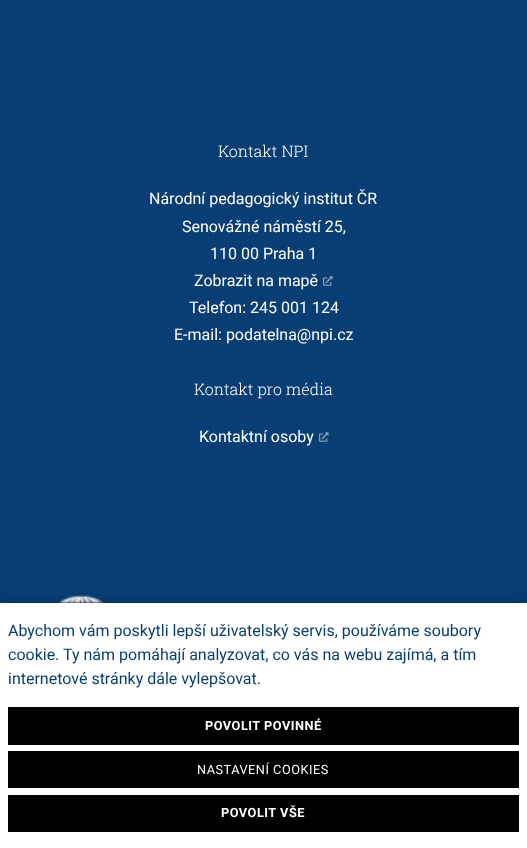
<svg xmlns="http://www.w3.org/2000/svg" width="527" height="848">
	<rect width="100%" height="100%" fill="#093E74" />
	<text x="218" y="157" font-family="Roboto Slab" font-size="16" font-weight="300" fill="#FFFFFF">Kontakt NPI</text>
	<g font-family="Roboto" font-size="16" fill="#FFFFFF">
		<text x="149" y="204">Národní pedagogický institut ČR</text>
		<text x="182" y="232">Senovážné náměstí 25,</text>
		<text x="210" y="259">110 00 Praha 1</text>
		<text x="194" y="286">Zobrazit na mapě</text>
	</g>
	<image x="323" y="276" width="10" height="10" href="assets/img1.png" />
	<g font-family="Roboto" font-size="16" fill="#FFFFFF">
		<text x="189" y="313">Telefon: 245 001 124</text>
		<text x="174" y="340">E-mail: podatelna@npi.cz</text>
	</g>
	<text x="194" y="395" font-family="Roboto Slab" font-size="16" font-weight="300" fill="#FFFFFF">Kontakt pro média</text>
	<text x="199" y="442" font-family="Roboto" font-size="16" fill="#FFFFFF">Kontaktní osoby</text>
	<image x="319" y="432" width="10" height="10" href="assets/img1.png" />
	<image x="59" y="595" width="44" height="8" href="assets/img2.png" />
	<rect x="0" y="603" width="527" height="245" fill="#000000" fill-opacity="0.25" filter="blur(6px)" />
	<rect x="0" y="603" width="527" height="245" fill="#FFFFFF" />
	<g font-family="Roboto" font-size="16" fill="#093E74">
		<text x="8" y="636">Abychom vám poskytli lepší uživatelský servis, používáme soubory</text>
		<text x="8" y="660">cookie. Ty nám pomáhají analyzovat, co vás na webu zajímá, a tím</text>
		<text x="8" y="684">internetové stránky dále vylepšovat.</text>
	</g>
	<rect x="8" y="707" width="511" height="38" fill="#000000" />
	<text x="205" y="730" font-family="Roboto" font-size="12.75" font-weight="700" letter-spacing="0.5" fill="#FFFFFF">POVOLIT POVINNÉ</text>
	<rect x="8" y="751" width="511" height="37" fill="#000000" />
	<text x="197" y="774" font-family="Roboto" font-size="12.75" letter-spacing="0.5" fill="#FFFFFF">NASTAVENÍ COOKIES</text>
	<rect x="8" y="795" width="511" height="37" fill="#000000" />
	<text x="221" y="817" font-family="Roboto" font-size="12.75" font-weight="700" letter-spacing="0.5" fill="#FFFFFF">POVOLIT VŠE</text>
</svg>
